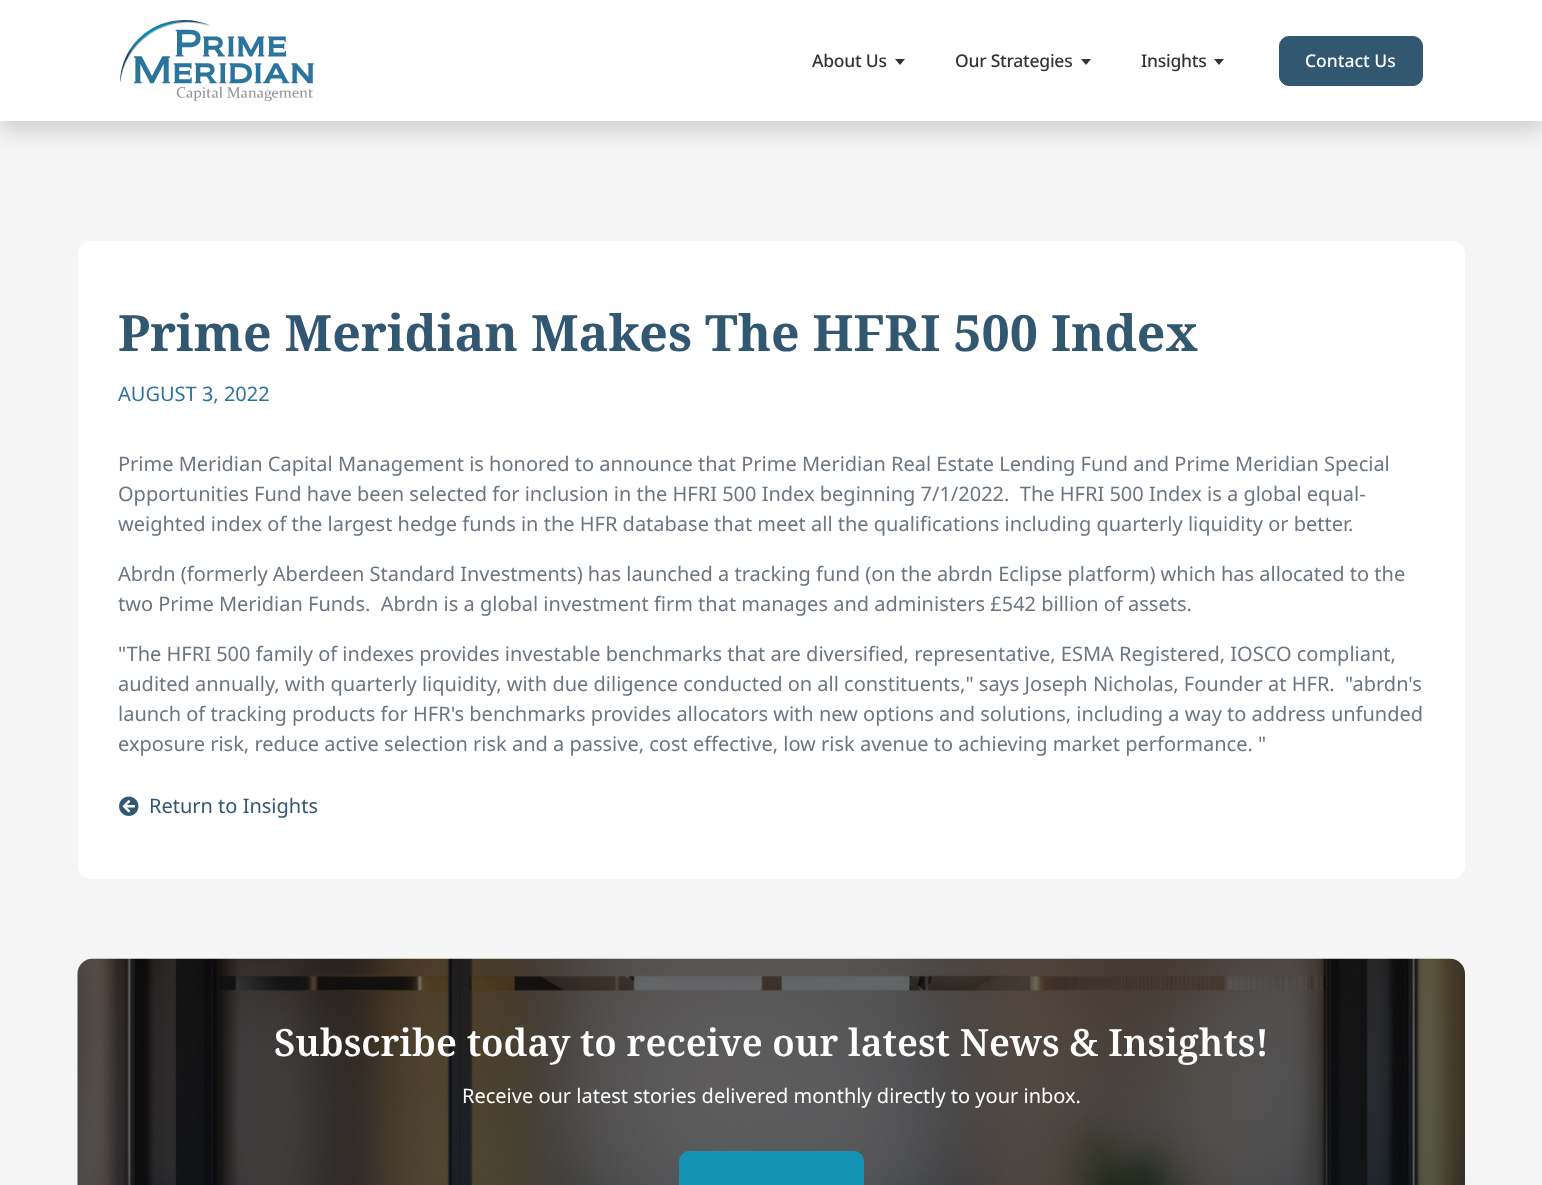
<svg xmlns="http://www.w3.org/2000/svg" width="1542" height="1185">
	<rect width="100%" height="100%" fill="#F5F5F5" />
	<rect x="0" y="10" width="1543" height="121" fill="#000000" fill-opacity="0.15" filter="blur(10px)" />
	<rect x="0" y="0" width="1542" height="121" fill="#FFFFFF" />
	<image x="120" y="20" width="194" height="81" href="assets/img1.png" />
	<text x="812" y="67" font-family="Noto Sans" font-size="17.5" font-weight="500" letter-spacing="-0.25" fill="#343434">About Us</text>
	<path d="M895 59H905L900 65Z" fill="#343434" />
	<text x="955" y="67" font-family="Noto Sans" font-size="17.5" font-weight="500" letter-spacing="-0.25" fill="#343434">Our Strategies</text>
	<path d="M1081 59H1091L1086 65Z" fill="#343434" />
	<text x="1141" y="67" font-family="Noto Sans" font-size="17.5" font-weight="500" letter-spacing="-0.25" fill="#343434">Insights</text>
	<path d="M1214 59H1224L1219 65Z" fill="#343434" />
	<rect x="1279.5" y="36.5" width="143" height="49" rx="9.5" fill="#325771" stroke="#325771" />
	<text x="1305" y="67" font-family="Noto Sans" font-size="17.5" font-weight="500" fill="#FFFFFF">Contact Us</text>
	<rect x="78" y="241" width="1387" height="638" rx="13" fill="#FFFFFF" />
	<text x="118" y="351" font-family="Noto Serif" font-size="50" font-weight="700" fill="#325771">Prime Meridian Makes The HFRI 500 Index</text>
	<text x="118" y="401" font-family="Noto Sans" font-size="20" fill="#2A749E">AUGUST 3, 2022</text>
	<g font-family="Noto Sans" font-size="20" fill="#6B7681">
		<text x="118" y="471">Prime Meridian Capital Management is honored to announce that Prime Meridian Real Estate Lending Fund and Prime Meridian Special</text>
		<text x="118" y="501" xml:space="preserve">Opportunities Fund have been selected for inclusion in the HFRI 500 Index beginning 7/1/2022.  The HFRI 500 Index is a global equal-</text>
		<text x="118" y="531">weighted index of the largest hedge funds in the HFR database that meet all the qualifications including quarterly liquidity or better.</text>
		<text x="118" y="581">Abrdn (formerly Aberdeen Standard Investments) has launched a tracking fund (on the abrdn Eclipse platform) which has allocated to the</text>
		<text x="118" y="611" xml:space="preserve">two Prime Meridian Funds.  Abrdn is a global investment firm that manages and administers £542 billion of assets.</text>
		<text x="118" y="661">"The HFRI 500 family of indexes provides investable benchmarks that are diversified, representative, ESMA Registered, IOSCO compliant,</text>
		<text x="118" y="691" xml:space="preserve">audited annually, with quarterly liquidity, with due diligence conducted on all constituents," says Joseph Nicholas, Founder at HFR.  "abrdn's</text>
		<text x="118" y="721">launch of tracking products for HFR's benchmarks provides allocators with new options and solutions, including a way to address unfunded</text>
		<text x="118" y="751">exposure risk, reduce active selection risk and a passive, cost effective, low risk avenue to achieving market performance. "</text>
	</g>
	<image x="119" y="796" width="20" height="20" href="assets/img2.png" />
	<text x="149" y="813" font-family="Noto Sans" font-size="20" fill="#325771">Return to Insights</text>
	<image x="77" y="958" width="1388" height="227" href="assets/img3.png" />
	<text x="274" y="1056" font-family="Noto Serif" font-size="37.5" font-weight="600" fill="#FFFFFF">Subscribe today to receive our latest News &amp; Insights!</text>
	<text x="462" y="1103" font-family="Noto Sans" font-size="20" fill="#FFFFFF">Receive our latest stories delivered monthly directly to your inbox.</text>
	<rect x="679.5" y="1151.5" width="184" height="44" rx="9.5" fill="#1593B5" stroke="#1593B5" />
</svg>
